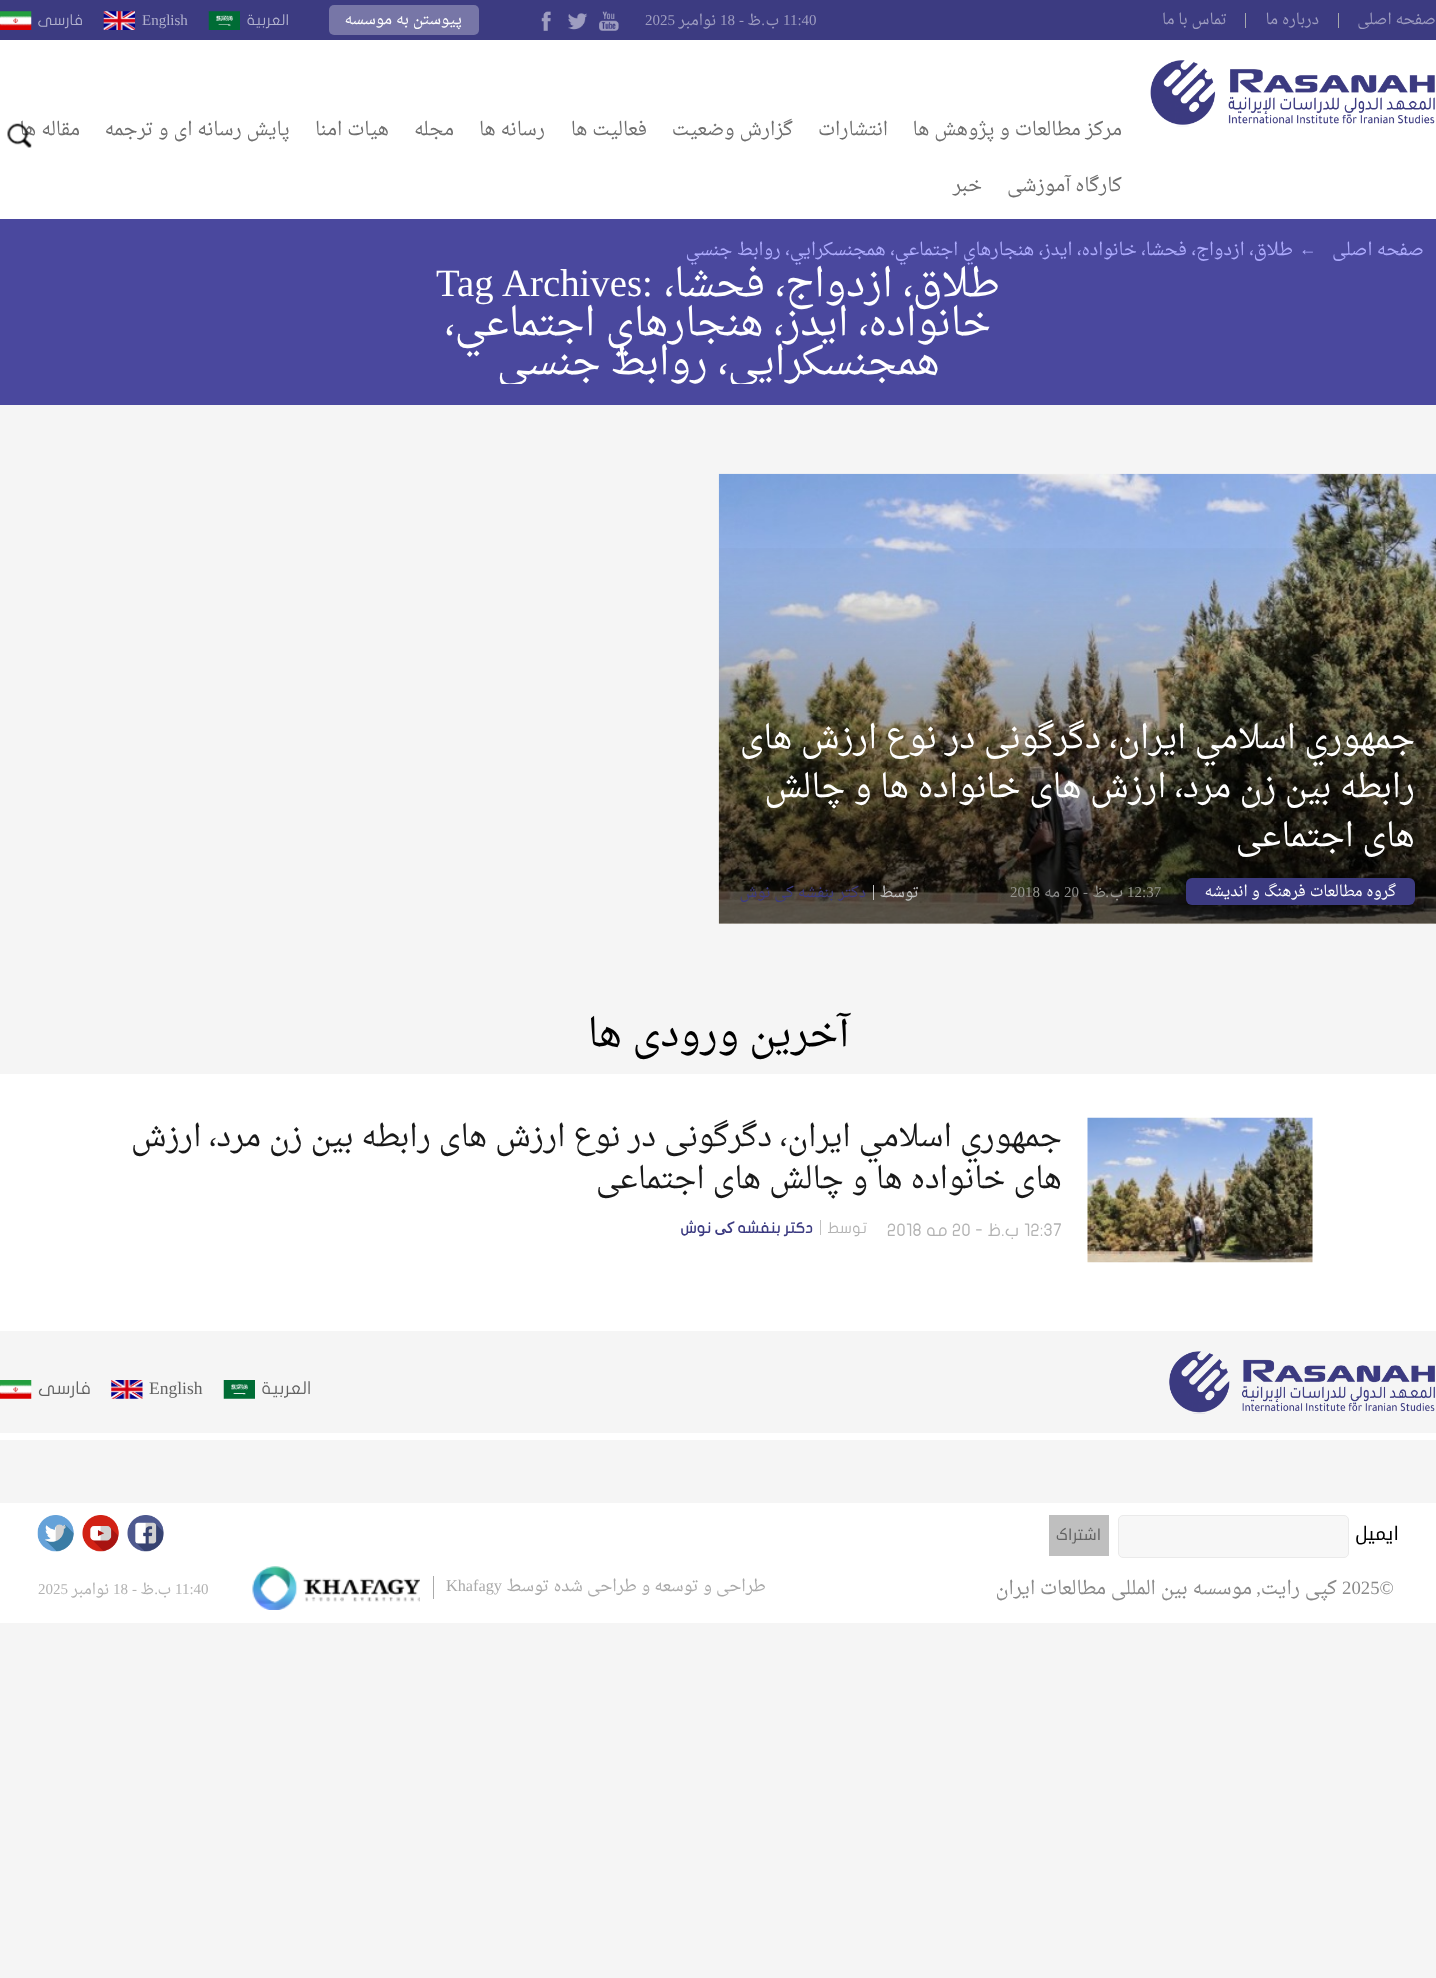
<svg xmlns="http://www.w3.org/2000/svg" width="1436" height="1978">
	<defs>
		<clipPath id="clip1"><rect x="363" y="263" width="712" height="121" /></clipPath>
	</defs>
	<rect width="100%" height="100%" fill="#F5F5F5" />
	<rect x="0" y="40" width="1436" height="179" fill="#FFFFFF" />
	<rect x="0" y="0" width="1436" height="40" fill="#3C3B81" />
	<rect x="1338" y="13" width="1" height="15" fill="#A6A8AD" />
	<text x="1436" y="24" font-family="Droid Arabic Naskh" font-size="15" direction="rtl" fill="#9E9DC0">صفحه اصلى</text>
	<rect x="1245" y="13" width="1" height="15" fill="#A6A8AD" />
	<g font-family="Droid Arabic Naskh" font-size="15" direction="rtl" fill="#9E9DC0">
		<text x="1319" y="24">درباره ما</text>
		<text x="1227" y="24">تماس با ما</text>
	</g>
	<text x="783" y="25" font-family="Liberation Serif" font-size="15" fill="#9E9DC0">11:40</text>
	<g font-family="Droid Arabic Naskh" font-size="15" direction="rtl" fill="#9E9DC0">
		<text x="779" y="25">ب</text>
		<text x="761" y="25">ظ</text>
	</g>
	<text x="744" y="25" font-family="Liberation Serif" font-size="15" direction="rtl" fill="#9E9DC0">-</text>
	<text x="720" y="25" font-family="Liberation Serif" font-size="15" fill="#9E9DC0">18</text>
	<text x="716" y="25" font-family="Droid Arabic Naskh" font-size="15" direction="rtl" fill="#9E9DC0">نوامبر</text>
	<text x="645" y="25" font-family="Liberation Serif" font-size="15" fill="#9E9DC0">2025</text>
	<text x="765" y="25" font-family="Liberation Serif" font-size="15" direction="rtl" fill="#9E9DC0">.</text>
	<image x="599" y="11" width="20" height="20" href="assets/img1.png" />
	<image x="568" y="13" width="20" height="17" href="assets/img2.png" />
	<image x="541" y="11" width="10" height="20" href="assets/img3.png" />
	<rect x="329" y="5" width="150" height="30" rx="5" fill="#7776A7" />
	<text x="462" y="24" font-family="Droid Arabic Naskh" font-size="15" direction="rtl" fill="#FFFFFF">پیوستن به موسسه</text>
	<image x="208" y="11" width="32" height="19" href="assets/img4.png" />
	<text x="289" y="25" font-family="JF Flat" font-size="15" direction="rtl" fill="#B1B1CD">العربية</text>
	<image x="103" y="11" width="32" height="19" href="assets/img5.png" />
	<text x="142" y="25" font-family="Liberation Serif" font-size="15" fill="#B1B1CD">English</text>
	<image x="0" y="11" width="32" height="19" href="assets/img6.png" />
	<text x="83" y="25" font-family="JF Flat" font-size="15" direction="rtl" fill="#B1B1CD">فارسى</text>
	<image x="1150" y="60" width="285" height="67" href="assets/img7.png" />
	<g font-family="Droid Arabic Naskh" font-size="18.75" direction="rtl" fill="#6F6F6F">
		<text x="1122" y="135">مرکز مطالعات و پژوهش ها</text>
		<text x="888" y="135">انتشارات</text>
		<text x="793" y="135">گزارش وضعیت</text>
		<text x="647" y="135">فعالیت ها</text>
		<text x="545" y="135">رسانه ها</text>
		<text x="454" y="135">مجله</text>
		<text x="389" y="135">هیات امنا</text>
		<text x="290" y="135">پایش رسانه ای و ترجمه</text>
		<text x="80" y="135">مقاله ها</text>
		<text x="1122" y="191">کارگاه آموزشی</text>
		<text x="982" y="191">خبر</text>
	</g>
	<image x="7" y="123" width="25" height="25" href="assets/img8.png" />
	<rect x="0" y="219" width="1436" height="186" fill="#4A489E" />
	<text x="1424" y="255" font-family="Droid Arabic Naskh" font-size="17.5" direction="rtl" fill="#ADABFD">صفحه اصلى</text>
	<text x="1299" y="255" font-family="Liberation Serif" font-size="17.5" fill="#ADABFD">←</text>
	<text x="1293" y="255" font-family="Droid Arabic Naskh" font-size="17.5" direction="rtl" fill="#ADABFD">طلاق، ازدواج، فحشا، خانواده، ايدز، هنجارهاي اجتماعي، همجنسكرايي، روابط جنسي</text>
	<text x="1000" y="296" font-family="Droid Arabic Naskh" font-size="38.75" direction="rtl" fill="#FFFFFF">طلاق، ازدواج، فحشا،</text>
	<text x="436" y="296" word-spacing="1" font-family="Liberation Serif" font-size="38.75" fill="#FFFFFF">Tag Archives:</text>
	<text x="991" y="335" font-family="Droid Arabic Naskh" font-size="38.75" direction="rtl" fill="#FFFFFF">خانواده، ايدز، هنجارهاي اجتماعي،</text>
	<g clip-path="url(#clip1)">
		<text x="940" y="374" font-family="Droid Arabic Naskh" font-size="38.75" direction="rtl" fill="#FFFFFF">همجنسكرايي، روابط جنسي</text>
	</g>
	<image x="718" y="473" width="718" height="451" href="assets/img9.png" />
	<image x="718" y="548" width="718" height="376" href="assets/img10.png" />
	<g font-family="Droid Arabic Naskh" font-size="32.5" direction="rtl" fill="#FFFFFF">
		<text x="1415" y="748">جمهوري اسلامي ايران، دگرگونی در نوع ارزش های</text>
		<text x="1415" y="797">رابطه بین زن مرد، ارزش های خانواده ها و چالش</text>
		<text x="1415" y="846">های اجتماعی</text>
	</g>
	<rect x="1186" y="878" width="229" height="27" rx="6" fill="#3C3B81" />
	<text x="1396" y="896" font-family="Droid Arabic Naskh" font-size="15" direction="rtl" fill="#FFFFFF">گروه مطالعات فرهنگ و اندیشه</text>
	<text x="1127" y="897" font-family="Liberation Serif" font-size="15" fill="#96968F">12:37</text>
	<text x="1123" y="897" font-family="Droid Arabic Naskh" font-size="15" direction="rtl" fill="#9E9C98">ب</text>
	<text x="1106" y="897" font-family="Droid Arabic Naskh" font-size="15" direction="rtl" fill="#96968F">ظ</text>
	<text x="1088" y="897" font-family="Liberation Serif" font-size="15" direction="rtl" fill="#8A8A8A">-</text>
	<text x="1064" y="897" font-family="Liberation Serif" font-size="15" fill="#8A8A8A">20</text>
	<text x="1060" y="897" font-family="Droid Arabic Naskh" font-size="15" direction="rtl" fill="#8A8A8A">مه</text>
	<text x="1010" y="897" font-family="Liberation Serif" font-size="15" fill="#96968F">2018</text>
	<text x="1109" y="897" font-family="Liberation Serif" font-size="15" direction="rtl" fill="#A6A39F">.</text>
	<rect x="873" y="885" width="1" height="15" fill="#C2C2C2" />
	<text x="919" y="897" font-family="Droid Arabic Naskh" font-size="15" direction="rtl" fill="#C2C2C2">توسط</text>
	<text x="866" y="897" font-family="Droid Arabic Naskh" font-size="15" direction="rtl" fill="#3C3B81">دكتر بنفشه کی نوش</text>
	<text x="849" y="1046" font-family="Droid Arabic Naskh" font-size="38.75" direction="rtl" fill="#000000">آخرین ورودی ها</text>
	<rect x="0" y="1074" width="1436" height="257" fill="#FFFFFF" />
	<image x="1087" y="1117" width="226" height="146" href="assets/img11.png" />
	<g font-family="Droid Arabic Naskh" font-size="30" direction="rtl" fill="#191919">
		<text x="1062" y="1146">جمهوري اسلامي ايران، دگرگونی در نوع ارزش های رابطه بین زن مرد، ارزش</text>
		<text x="1062" y="1188">های خانواده ها و چالش های اجتماعی</text>
	</g>
	<text x="1024" y="1236" font-family="JF Flat" font-size="17.5" fill="#B2B2B2">12:37</text>
	<text x="1019" y="1236" font-family="JF Flat" font-size="17.5" direction="rtl" fill="#B2B2B2">ب.ظ -</text>
	<text x="952" y="1236" font-family="JF Flat" font-size="17.5" fill="#B2B2B2">20</text>
	<text x="948" y="1236" font-family="JF Flat" font-size="17.5" direction="rtl" fill="#B2B2B2">مه</text>
	<text x="887" y="1236" font-family="JF Flat" font-size="17.5" fill="#B2B2B2">2018</text>
	<rect x="820" y="1220" width="1" height="15" fill="#C2C2C2" />
	<text x="867" y="1233" font-family="JF Flat" font-size="15" direction="rtl" fill="#B2B2B2">توسط</text>
	<text x="813" y="1233" font-family="JF Flat" font-size="15" font-weight="700" direction="rtl" fill="#3C3B81">دكتر بنفشه</text>
	<text x="734" y="1233" font-family="DejaVu Sans" font-size="15" font-weight="700" direction="rtl" fill="#3C3B81">کی</text>
	<text x="711" y="1233" font-family="JF Flat" font-size="15" font-weight="700" direction="rtl" fill="#3C3B81">نوش</text>
	<rect x="0" y="1433" width="1436" height="7" fill="#FFFFFF" />
	<image x="1169" y="1351" width="266" height="63" href="assets/img12.png" />
	<image x="223" y="1380" width="32" height="19" href="assets/img13.png" />
	<text x="311" y="1394" font-family="JF Flat" font-size="17.5" direction="rtl" fill="#626262">العربية</text>
	<image x="111" y="1380" width="32" height="19" href="assets/img14.png" />
	<text x="149" y="1394" font-family="Liberation Serif" font-size="17.5" fill="#626262">English</text>
	<image x="0" y="1380" width="32" height="19" href="assets/img15.png" />
	<text x="91" y="1394" font-family="JF Flat" font-size="17.5" direction="rtl" fill="#626262">فارسى</text>
	<rect x="0" y="1503" width="1436" height="120" fill="#FFFFFF" />
	<text x="1399" y="1540" font-family="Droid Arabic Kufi" font-size="18.75" direction="rtl" fill="#000000">ایمیل</text>
	<rect x="1118.5" y="1515.5" width="230" height="42" rx="4.5" fill="#F7F7F7" stroke="#EAEAEA" />
	<rect x="1049" y="1515" width="60" height="41" fill="#BFBFBF" />
	<text x="1101" y="1540" font-family="Droid Arabic Kufi" font-size="15" direction="rtl" fill="#626262">اشتراک</text>
	<image x="127" y="1515" width="37" height="37" href="assets/img16.png" />
	<image x="82" y="1515" width="37" height="37" href="assets/img17.png" />
	<image x="37" y="1515" width="37" height="37" href="assets/img18.png" />
	<text x="1342" y="1594" font-family="Liberation Serif" font-size="18.75" fill="#8A8A8A">2025©</text>
	<text x="1337" y="1594" font-family="Droid Arabic Naskh" font-size="18.75" direction="rtl" fill="#8A8A8A">کپی رایت</text>
	<text x="1261" y="1594" font-family="Liberation Serif" font-size="18.75" direction="rtl" fill="#8A8A8A">,</text>
	<text x="1252" y="1594" font-family="Droid Arabic Naskh" font-size="18.75" direction="rtl" fill="#8A8A8A">موسسه بين المللى مطالعات ايران</text>
	<rect x="433" y="1576" width="1" height="23" fill="#AAAAAA" />
	<text x="766" y="1591" font-family="Droid Arabic Naskh" font-size="16.25" direction="rtl" fill="#AAAAAA">طراحی و توسعه و طراحی شده توسط</text>
	<text x="446" y="1591" font-family="Liberation Serif" font-size="16.25" fill="#AAAAAA">Khafagy</text>
	<image x="252" y="1566" width="168" height="44" href="assets/img19.png" />
	<text x="175" y="1594" font-family="Liberation Serif" font-size="15" fill="#B2B2B2">11:40</text>
	<g font-family="Droid Arabic Naskh" font-size="15" direction="rtl" fill="#B2B2B2">
		<text x="171" y="1594">ب</text>
		<text x="154" y="1594">ظ</text>
	</g>
	<text x="137" y="1594" font-family="Liberation Serif" font-size="15" direction="rtl" fill="#B2B2B2">-</text>
	<text x="113" y="1594" font-family="Liberation Serif" font-size="15" fill="#B2B2B2">18</text>
	<text x="109" y="1594" font-family="Droid Arabic Naskh" font-size="15" direction="rtl" fill="#B2B2B2">نوامبر</text>
	<text x="38" y="1594" font-family="Liberation Serif" font-size="15" fill="#B2B2B2">2025</text>
	<text x="158" y="1594" font-family="Liberation Serif" font-size="15" direction="rtl" fill="#B2B2B2">.</text>
</svg>
